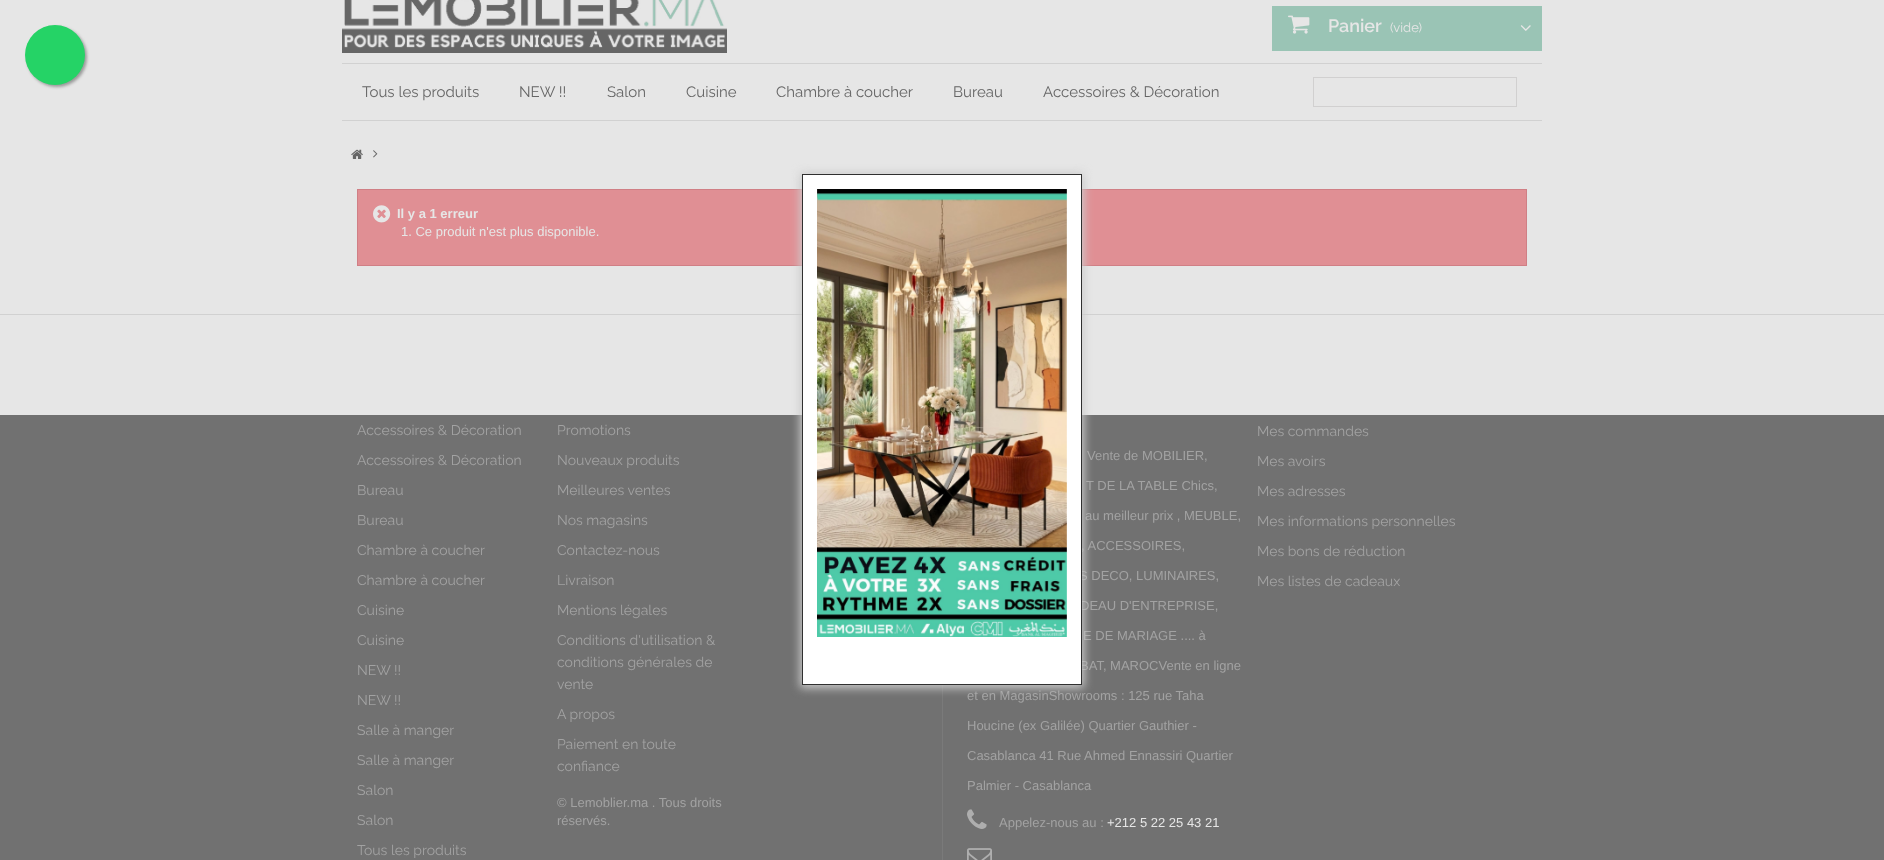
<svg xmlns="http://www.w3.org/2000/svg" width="1884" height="860">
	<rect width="100%" height="100%" fill="#E6E6E6" />
	<image x="342" y="0" width="385" height="53" href="assets/img1.png" />
	<rect x="1272" y="6" width="270" height="45" fill="#9AC4B5" />
	<image x="1288" y="15" width="22" height="19" href="assets/img2.png" />
	<text x="1328" y="32" font-family="Raleway" font-size="18" font-weight="600" fill="#E6E6E6">Panier</text>
	<text x="1390" y="32" font-family="Raleway" font-size="13" fill="#E6E6E6">(vide)</text>
	<image x="1520" y="25" width="11" height="6" href="assets/img3.png" />
	<rect x="342" y="63" width="1200" height="1" fill="#D1D1D1" />
	<rect x="342" y="120" width="1200" height="1" fill="#D1D1D1" />
	<g font-family="Raleway" font-size="15" fill="#666666">
		<text x="362" y="97">Tous les produits</text>
		<text x="519" y="97">NEW !!</text>
		<text x="607" y="97">Salon</text>
		<text x="686" y="97">Cuisine</text>
		<text x="776" y="97">Chambre à coucher</text>
		<text x="953" y="97">Bureau</text>
		<text x="1043" y="97">Accessoires &amp; Décoration</text>
	</g>
	<rect x="1313.5" y="77.5" width="203" height="29" fill="none" stroke="#D1D0D0" />
	<image x="351" y="149" width="12" height="10" href="assets/img4.png" />
	<image x="373" y="150" width="5" height="8" href="assets/img5.png" />
	<rect x="357.5" y="189.5" width="1169" height="76" fill="#E08F94" stroke="#D07F85" />
	<image x="373" y="205" width="18" height="18" href="assets/img6.png" />
	<text x="397" y="218" font-family="Liberation Sans" font-size="13" font-weight="700" fill="#E6E6E6">Il y a 1 erreur</text>
	<text x="401" y="236" font-family="Liberation Sans" font-size="13" fill="#E6E6E6">1. Ce produit n'est plus disponible.</text>
	<rect x="0" y="415" width="1884" height="445" fill="#717171" />
	<rect x="0" y="314" width="1884" height="1" fill="#D1D1D1" />
	<rect x="27" y="27" width="60" height="60" rx="30" fill="#999999" filter="blur(1.5px)" />
	<circle cx="55" cy="55" r="30" fill="#25D366" />
	<g font-family="Raleway" font-size="14" fill="#A2A2A2">
		<text x="357" y="435">Accessoires &amp; Décoration</text>
		<text x="357" y="465">Accessoires &amp; Décoration</text>
		<text x="357" y="495">Bureau</text>
		<text x="357" y="525">Bureau</text>
		<text x="357" y="555">Chambre à coucher</text>
		<text x="357" y="585">Chambre à coucher</text>
		<text x="357" y="615">Cuisine</text>
		<text x="357" y="645">Cuisine</text>
		<text x="357" y="675">NEW !!</text>
		<text x="357" y="705">NEW !!</text>
		<text x="357" y="735">Salle à manger</text>
		<text x="357" y="765">Salle à manger</text>
		<text x="357" y="795">Salon</text>
		<text x="357" y="825">Salon</text>
		<text x="357" y="855">Tous les produits</text>
		<text x="557" y="435">Promotions</text>
		<text x="557" y="465">Nouveaux produits</text>
		<text x="557" y="495">Meilleures ventes</text>
		<text x="557" y="525">Nos magasins</text>
		<text x="557" y="555">Contactez-nous</text>
		<text x="557" y="585">Livraison</text>
		<text x="557" y="615">Mentions légales</text>
		<text x="557" y="645">Conditions d'utilisation &amp;</text>
		<text x="557" y="667">conditions générales de</text>
		<text x="557" y="689">vente</text>
		<text x="557" y="719">A propos</text>
		<text x="557" y="749">Paiement en toute</text>
		<text x="557" y="771">confiance</text>
	</g>
	<g font-family="Liberation Sans" font-size="13" fill="#A2A2A2">
		<text x="557" y="807">© Lemoblier.ma . Tous droits</text>
		<text x="557" y="825">réservés.</text>
	</g>
	<rect x="942" y="685" width="1" height="175" fill="#7A7A7A" />
	<g font-family="Liberation Sans" font-size="13" fill="#A2A2A2">
		<text x="1087" y="460">Vente de MOBILIER,</text>
		<text x="1086" y="490">T DE LA TABLE Chics,</text>
		<text x="1085" y="520">au meilleur prix , MEUBLE,</text>
		<text x="1081" y="550">, ACCESSOIRES,</text>
		<text x="1079" y="580">S DECO, LUMINAIRES,</text>
		<text x="1080" y="610">DEAU D'ENTREPRISE,</text>
		<text x="1083" y="640">E DE MARIAGE .... à</text>
		<text x="1080" y="670">BAT, MAROCVente en ligne</text>
		<text x="967" y="700">et en MagasinShowrooms : 125 rue Taha</text>
		<text x="967" y="730">Houcine (ex Galilée) Quartier Gauthier -</text>
		<text x="967" y="760">Casablanca 41 Rue Ahmed Ennassiri Quartier</text>
		<text x="967" y="790">Palmier - Casablanca</text>
	</g>
	<image x="967" y="809" width="20" height="20" href="assets/img7.png" />
	<text x="999" y="827" font-family="Liberation Sans" font-size="13" fill="#A2A2A2">Appelez-nous au :</text>
	<text x="1107" y="827" font-family="Liberation Sans" font-size="13" fill="#E6E6E6">+212 5 22 25 43 21</text>
	<image x="967" y="848" width="25" height="12" href="assets/img8.png" />
	<g font-family="Raleway" font-size="14" fill="#A2A2A2">
		<text x="1257" y="436">Mes commandes</text>
		<text x="1257" y="466">Mes avoirs</text>
		<text x="1257" y="496">Mes adresses</text>
		<text x="1257" y="526">Mes informations personnelles</text>
		<text x="1257" y="556">Mes bons de réduction</text>
		<text x="1257" y="586">Mes listes de cadeaux</text>
	</g>
	<rect x="800" y="173" width="284" height="515" fill="#CCCCCC" filter="blur(5px)" />
	<rect x="802.5" y="174.5" width="279" height="510" fill="#FFFFFF" stroke="#303030" />
	<image x="817" y="189" width="250" height="448" href="assets/img9.png" />
</svg>
